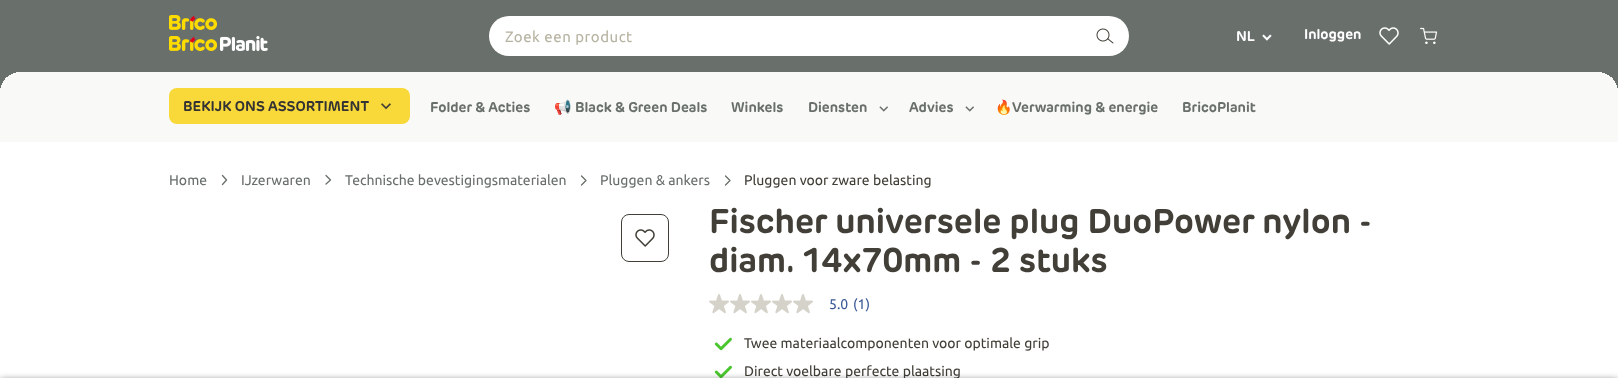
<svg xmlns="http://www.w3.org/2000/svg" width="1618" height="378">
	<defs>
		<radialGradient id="g1" gradientUnits="userSpaceOnUse" cx="20" cy="92" r="28"><stop offset="0.71" stop-color="#F9F9F8" /><stop offset="0.71" stop-color="#696F6A" /></radialGradient>
		<radialGradient id="g2" gradientUnits="userSpaceOnUse" cx="1598" cy="92" r="28"><stop offset="0.71" stop-color="#F9F9F8" /><stop offset="0.71" stop-color="#696F6A" /></radialGradient>
	</defs>
	<rect width="100%" height="100%" fill="#FFFFFF" />
	<rect x="0" y="0" width="1618" height="72" fill="#696F6A" />
	<image x="169" y="15" width="48" height="15" href="assets/img1.png" />
	<image x="169" y="36" width="48" height="15" href="assets/img1.png" />
	<image x="220" y="36" width="48" height="15" href="assets/img2.png" />
	<rect x="489" y="16" width="640" height="40" rx="20" fill="#FFFFFF" />
	<text x="505" y="42" font-family="Ubuntu" font-size="15" letter-spacing="0.5" fill="#B7B3A2">Zoek een product</text>
	<image x="1096" y="28" width="18" height="16" href="assets/img3.png" />
	<text x="1236" y="41" font-family="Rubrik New" font-size="14" font-weight="700" fill="#FFFFFF">NL</text>
	<image x="1262" y="34" width="10" height="7" href="assets/img4.png" />
	<text x="1304" y="39" font-family="Rubrik New" font-size="14" font-weight="700" fill="#FFFFFF">Inloggen</text>
	<image x="1379" y="27" width="20" height="18" href="assets/img5.png" />
	<image x="1420" y="27" width="18" height="17" href="assets/img6.png" />
	<rect x="0" y="72" width="1618" height="70" fill="#F9F9F8" />
	<rect x="0" y="72" width="16" height="16" fill="url(#g1)" />
	<rect x="1602" y="72" width="16" height="16" fill="url(#g2)" />
	<rect x="169" y="88" width="241" height="36" rx="8" fill="#F9D839" />
	<text x="183" y="111" font-family="Rubrik New" font-size="14" font-weight="700" fill="#333333">BEKIJK ONS ASSORTIMENT</text>
	<image x="381" y="103" width="10" height="7" href="assets/img7.png" />
	<text x="430" y="112" font-family="Rubrik New" font-size="14" font-weight="700" fill="#696F6A">Folder &amp; Acties</text>
	<text x="554" y="112" font-family="Noto Color Emoji" font-size="14" fill="#696F6A">📢</text>
	<g font-family="Rubrik New" font-size="14" font-weight="700" fill="#696F6A">
		<text x="575" y="112">Black &amp; Green Deals</text>
		<text x="731" y="112">Winkels</text>
		<text x="808" y="112">Diensten</text>
	</g>
	<image x="879" y="106" width="9" height="6" href="assets/img8.png" />
	<text x="909" y="112" font-family="Rubrik New" font-size="14" font-weight="700" fill="#696F6A">Advies</text>
	<image x="965" y="106" width="9" height="6" href="assets/img8.png" />
	<text x="995" y="112" font-family="Noto Color Emoji" font-size="14" fill="#696F6A">🔥</text>
	<g font-family="Rubrik New" font-size="14" font-weight="700" fill="#696F6A">
		<text x="1012" y="112">Verwarming &amp; energie</text>
		<text x="1182" y="112">BricoPlanit</text>
	</g>
	<text x="169" y="185" font-family="Ubuntu" font-size="14" fill="#696F6A">Home</text>
	<path d="M222.5 184.5L226.5 180L222.5 175.5" fill="none" stroke="#696F6A" stroke-width="1.3" stroke-linecap="round" stroke-linejoin="round" />
	<text x="241" y="185" font-family="Ubuntu" font-size="14" fill="#696F6A">IJzerwaren</text>
	<path d="M326 184L330.5 180L326 175.5" fill="none" stroke="#696F6A" stroke-width="1.3" stroke-linecap="round" stroke-linejoin="round" />
	<text x="345" y="185" font-family="Ubuntu" font-size="14" fill="#696F6A">Technische bevestigingsmaterialen</text>
	<path d="M581.5 185L586 180.5L581.5 176" fill="none" stroke="#696F6A" stroke-width="1.3" stroke-linecap="round" stroke-linejoin="round" />
	<text x="600" y="185" font-family="Ubuntu" font-size="14" fill="#696F6A">Pluggen &amp; ankers</text>
	<path d="M725.5 185L730 180.5L725.5 176" fill="none" stroke="#696F6A" stroke-width="1.3" stroke-linecap="round" stroke-linejoin="round" />
	<text x="744" y="185" font-family="Ubuntu" font-size="14" fill="#413F37">Pluggen voor zware belasting</text>
	<rect x="621.5" y="214.5" width="47" height="47" rx="7.5" fill="none" stroke="#413F37" />
	<image x="635" y="229" width="20" height="18" href="assets/img9.png" />
	<g font-family="Rubrik New" font-size="34" font-weight="700" fill="#413F37">
		<text x="709" y="233">Fischer universele plug DuoPower nylon -</text>
		<text x="709" y="272">diam. 14x70mm - 2 stuks</text>
	</g>
	<image x="709" y="294" width="20" height="20" href="assets/img10.png" />
	<image x="730" y="294" width="20" height="20" href="assets/img10.png" />
	<image x="751" y="294" width="20" height="20" href="assets/img10.png" />
	<image x="772" y="294" width="20" height="20" href="assets/img10.png" />
	<image x="793" y="294" width="20" height="20" href="assets/img10.png" />
	<g font-family="Ubuntu" font-size="14" fill="#3B5998">
		<text x="829" y="309">5.0</text>
		<text x="853" y="309">(1)</text>
	</g>
	<image x="714" y="337" width="18" height="14" href="assets/img11.png" />
	<text x="744" y="348" font-family="Ubuntu" font-size="14" fill="#413F37">Twee materiaalcomponenten voor optimale grip</text>
	<image x="714" y="365" width="18" height="13" href="assets/img12.png" />
	<text x="744" y="376" font-family="Ubuntu" font-size="14" fill="#413F37">Direct voelbare perfecte plaatsing</text>
	<rect x="0" y="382" width="1618" height="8" fill="#000000" filter="blur(4px)" />
</svg>
